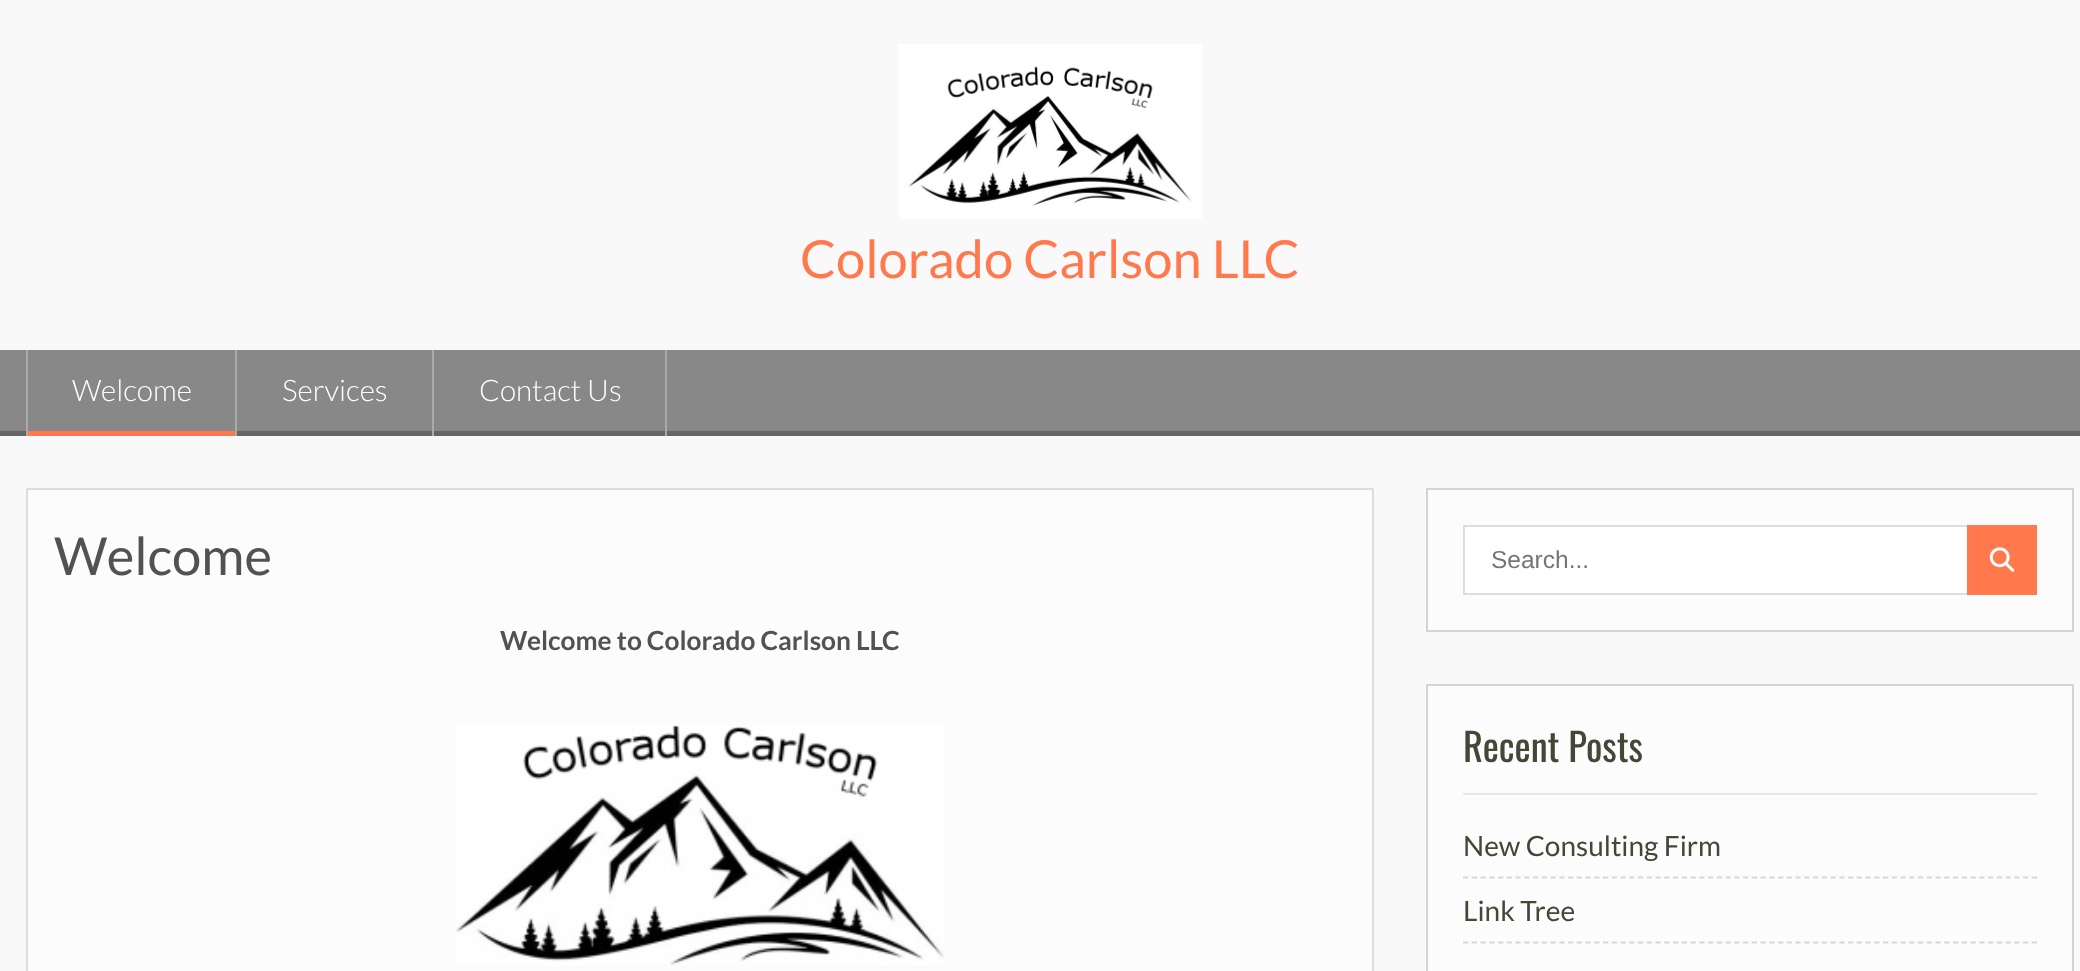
<svg xmlns="http://www.w3.org/2000/svg" width="2080" height="971">
	<rect width="100%" height="100%" fill="#F9F9F9" />
	<image x="898" y="44" width="304" height="175" href="assets/img1.png" />
	<text x="800" y="278" font-family="Lato" font-size="52.5" fill="#FF794C">Colorado Carlson LLC</text>
	<rect x="0" y="350" width="2080" height="81" fill="#888888" />
	<rect x="0" y="431" width="2080" height="5" fill="#666666" />
	<rect x="235" y="350" width="2" height="86" fill="#AAAAAA" />
	<rect x="26" y="350" width="2" height="86" fill="#AAAAAA" />
	<rect x="28" y="431" width="207" height="5" fill="#FF794C" />
	<text x="72" y="401" font-family="Lato" font-size="29.75" font-weight="300" fill="#FFFFFF">Welcome</text>
	<rect x="432" y="350" width="2" height="86" fill="#AAAAAA" />
	<text x="282" y="401" font-family="Lato" font-size="29.75" font-weight="300" fill="#FFFFFF">Services</text>
	<rect x="665" y="350" width="2" height="86" fill="#AAAAAA" />
	<text x="479" y="401" font-family="Lato" font-size="29.75" font-weight="300" fill="#FFFFFF">Contact Us</text>
	<rect x="27" y="489" width="1346" height="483" fill="#FCFCFC" stroke="#DDDDDD" stroke-width="2" />
	<text x="54" y="575" font-family="Lato" font-size="52.5" fill="#525252">Welcome</text>
	<text x="500" y="650" font-family="Lato" font-size="26.25" font-weight="700" fill="#525252">Welcome to Colorado Carlson LLC</text>
	<image x="456" y="725" width="488" height="240" href="assets/img2.png" />
	<rect x="1427" y="489" width="646" height="142" fill="#FCFCFC" stroke="#D4D4D4" stroke-width="2" />
	<rect x="1465" y="527" width="502" height="66" fill="#FFFFFF" />
	<rect x="1464" y="526" width="572" height="68" fill="none" stroke="#DDDDDD" stroke-width="2" />
	<text x="1491" y="568" font-family="Liberation Sans" font-size="24.5" fill="#757575">Search...</text>
	<rect x="1967" y="525" width="70" height="70" fill="#FF794C" />
	<image x="1989" y="547" width="26" height="25" href="assets/img3.png" />
	<rect x="1427" y="685" width="646" height="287" fill="#FCFCFC" stroke="#D4D4D4" stroke-width="2" />
	<text x="1463" y="762" font-family="Oswald" font-size="38.5" fill="#464637">Recent Posts</text>
	<rect x="1463" y="795" width="574" height="2" fill="#FFFFFF" />
	<rect x="1463" y="793" width="574" height="2" fill="#E6E6E6" />
	<text x="1463" y="856" font-family="Lato" font-size="28" fill="#464637">New Consulting Firm</text>
	<path d="M1463 877.5H2037" fill="none" stroke="#D7D7D0" stroke-width="1.8" stroke-dasharray="5.25 3.5" />
	<text x="1463" y="921" font-family="Lato" font-size="28" fill="#464637">Link Tree</text>
	<path d="M1463 942.5H2037" fill="none" stroke="#D7D7D0" stroke-width="1.8" stroke-dasharray="5.25 3.5" />
</svg>
